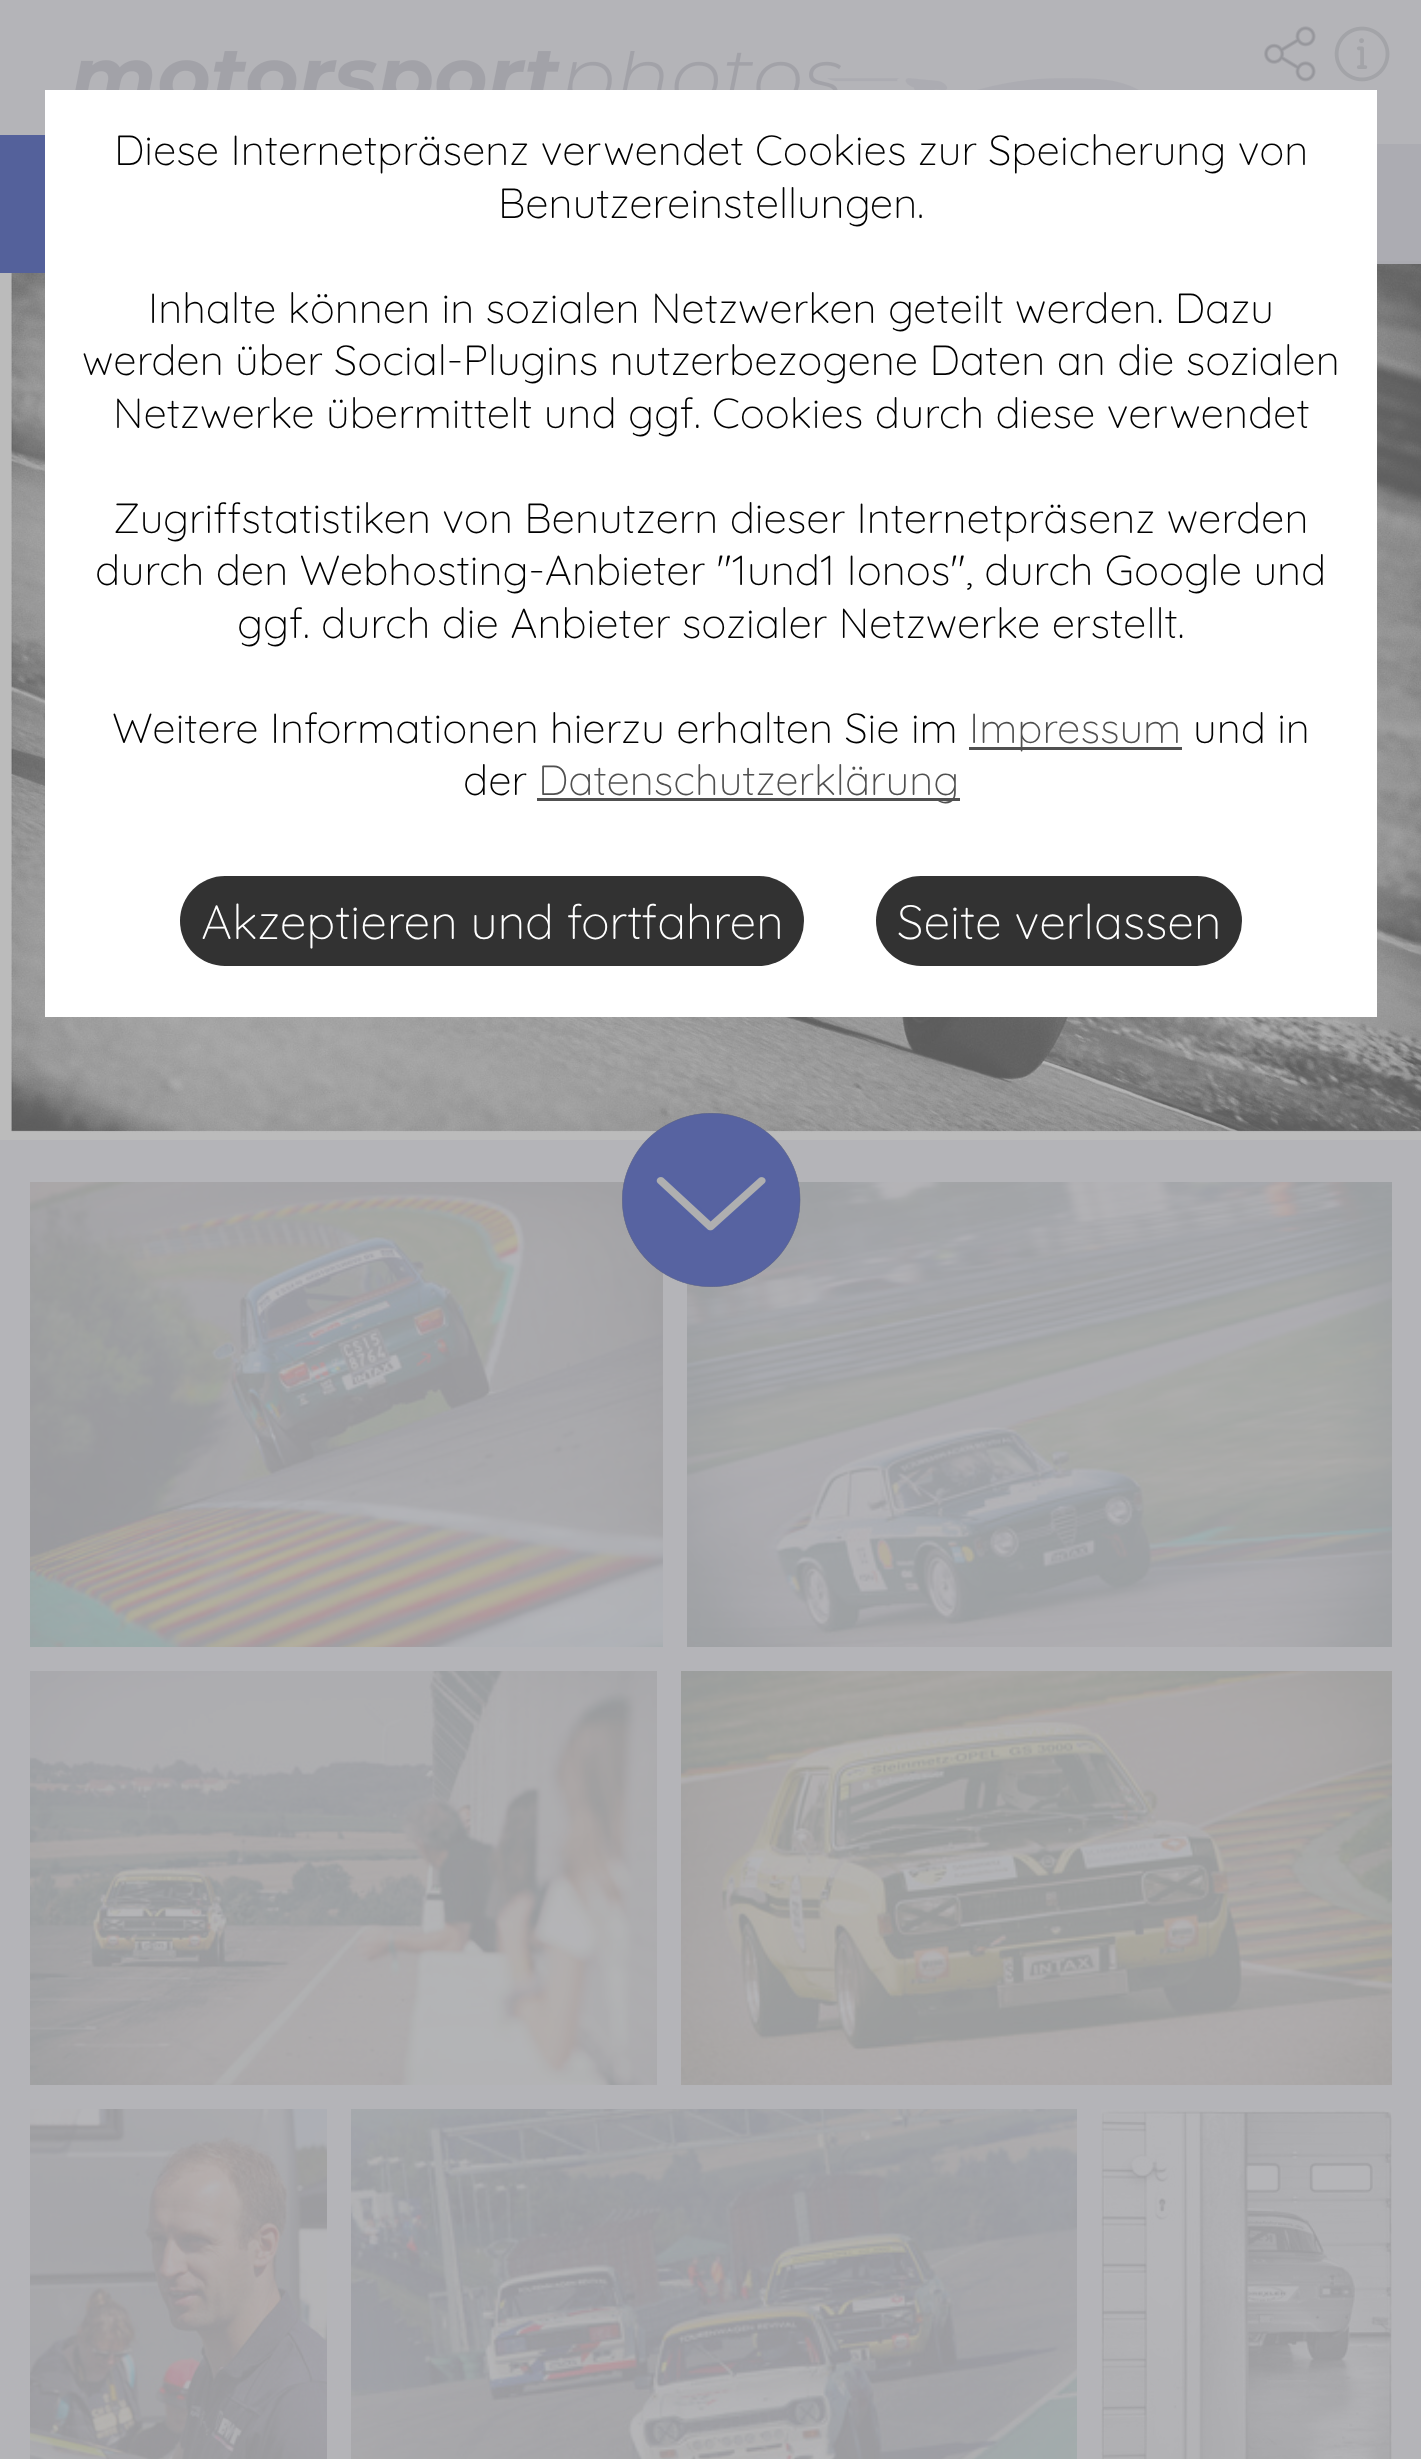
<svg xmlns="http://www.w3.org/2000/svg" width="1421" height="2459">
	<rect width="100%" height="100%" fill="#FFFFFF" />
	<rect x="1377" y="144" width="44" height="117" fill="#ACACB2" />
	<rect x="1377" y="261" width="44" height="3" fill="#AAAAB0" />
	<rect x="0" y="0" width="1421" height="144" fill="#B4B4B8" />
	<image x="75" y="51" width="1064" height="39" href="assets/img1.png" />
	<image x="1264" y="26" width="52" height="56" href="assets/img2.png" />
	<image x="1334" y="26" width="56" height="56" href="assets/img3.png" />
	<image x="0" y="264" width="1421" height="876" href="assets/img4.png" />
	<rect x="0" y="135" width="45" height="138" fill="#54619B" />
	<rect x="45" y="90" width="1332" height="927" fill="#FFFFFF" />
	<g font-family="Quicksand" font-size="42" font-weight="300" fill="#000000">
		<text x="114" y="165">Diese Internetpräsenz verwendet Cookies zur Speicherung von</text>
		<text x="498" y="218">Benutzereinstellungen.</text>
		<text x="148" y="323">Inhalte können in sozialen Netzwerken geteilt werden. Dazu</text>
		<text x="82" y="375">werden über Social-Plugins nutzerbezogene Daten an die sozialen</text>
		<text x="113" y="428">Netzwerke übermittelt und ggf. Cookies durch diese verwendet</text>
		<text x="113" y="533">Zugriffstatistiken von Benutzern dieser Internetpräsenz werden</text>
		<text x="95" y="585">durch den Webhosting-Anbieter "1und1 Ionos", durch Google und</text>
		<text x="237" y="638">ggf. durch die Anbieter sozialer Netzwerke erstellt.</text>
		<text x="112" y="743">Weitere Informationen hierzu erhalten Sie im</text>
	</g>
	<rect x="969" y="747" width="213" height="3" fill="#505050" />
	<text x="969" y="743" font-family="Quicksand" font-size="42" font-weight="300" fill="#505050">Impressum</text>
	<g font-family="Quicksand" font-size="42" font-weight="300" fill="#000000">
		<text x="1193" y="743">und in</text>
		<text x="463" y="795">der</text>
	</g>
	<rect x="537" y="798" width="423" height="3" fill="#505050" />
	<text x="538" y="795" font-family="Quicksand" font-size="42" font-weight="300" fill="#505050">Datenschutzerklärung</text>
	<rect x="180" y="876" width="624" height="90" rx="45" fill="#323232" />
	<text x="201" y="939" font-family="Quicksand" font-size="48" font-weight="300" fill="#FFFFFF">Akzeptieren und fortfahren</text>
	<rect x="876" y="876" width="366" height="90" rx="45" fill="#323232" />
	<text x="897" y="939" font-family="Quicksand" font-size="48" font-weight="300" fill="#FFFFFF">Seite verlassen</text>
	<rect x="0" y="1140" width="1421" height="1319" fill="#B4B4B8" />
	<image x="30" y="1182" width="633" height="465" href="assets/img6.png" />
	<image x="687" y="1182" width="705" height="465" href="assets/img7.png" />
	<image x="30" y="1671" width="627" height="414" href="assets/img8.png" />
	<image x="681" y="1671" width="711" height="414" href="assets/img9.png" />
	<image x="30" y="2109" width="297" height="350" href="assets/img10.png" />
	<image x="351" y="2109" width="726" height="350" href="assets/img11.png" />
	<image x="1101" y="2109" width="291" height="350" href="assets/img12.png" />
	<rect x="30" y="1182" width="1362" height="1277" fill="#B4B4B8" fill-opacity="0.74" />
	<image x="622" y="1113" width="179" height="174" href="assets/img5.png" />
</svg>
